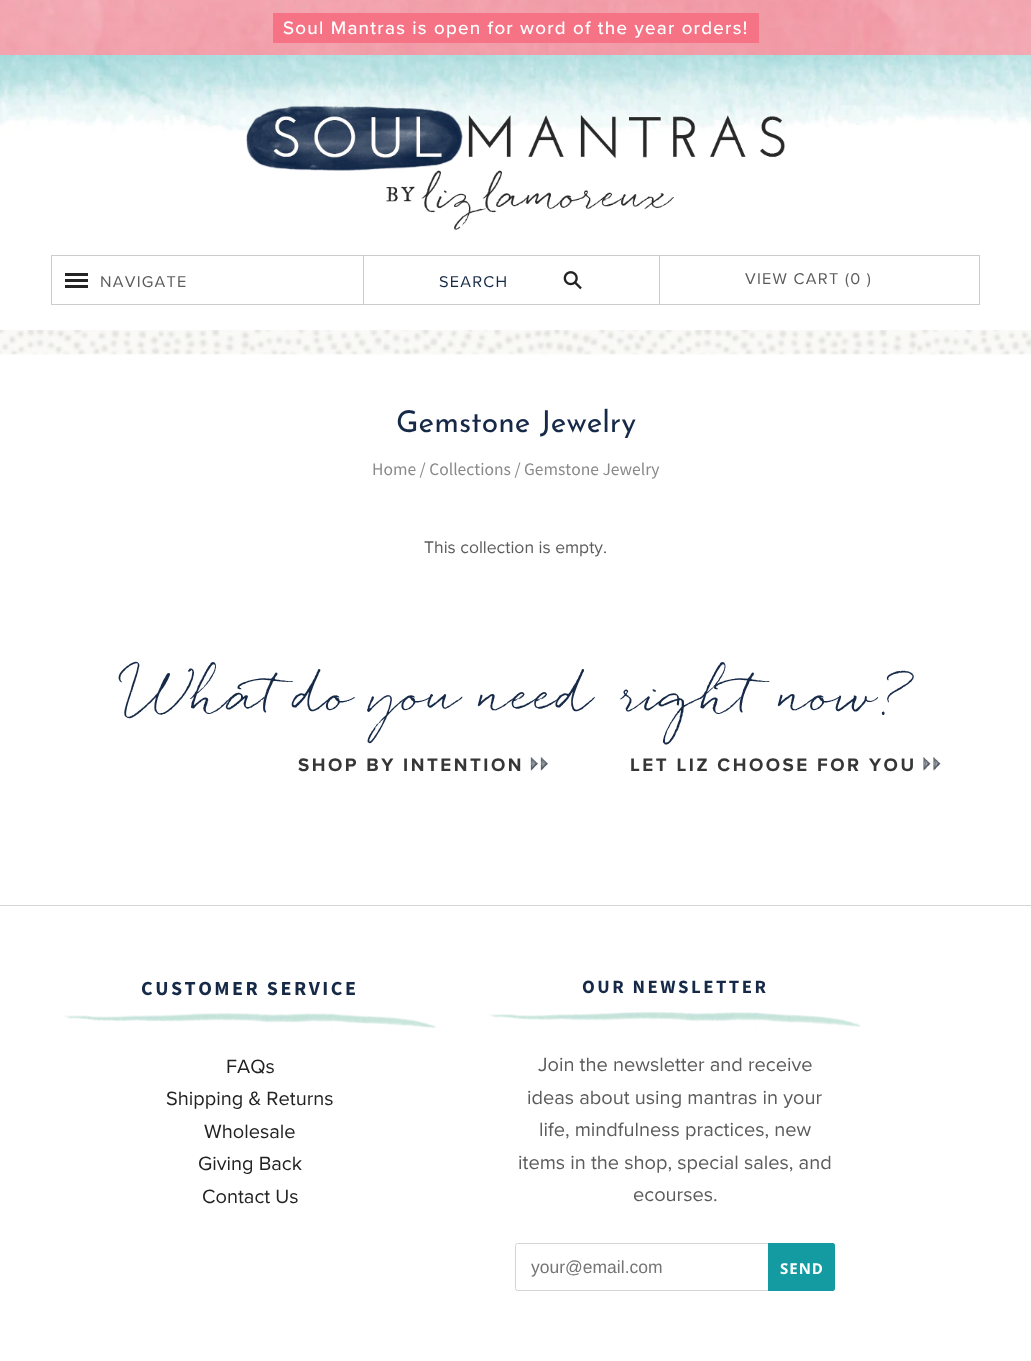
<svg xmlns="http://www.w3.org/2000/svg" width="1031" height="1361">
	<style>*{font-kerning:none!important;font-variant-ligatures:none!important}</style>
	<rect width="100%" height="100%" fill="#FFFFFF" />
	<image x="0" y="0" width="1031" height="55" href="assets/img1.png" />
	<rect x="273" y="13" width="486" height="30" fill="#F67385" />
	<text x="283" y="34" font-family="Proxima Nova" font-size="18.75" font-weight="500" letter-spacing="1.25" fill="#FFFFFF">Soul Mantras is open for word of the year orders!</text>
	<image x="0" y="55" width="1031" height="79" href="assets/img2.png" />
	<image x="246" y="105" width="539" height="125" href="assets/img3.png" />
	<rect x="51.5" y="255.5" width="928" height="49" fill="none" stroke="#CCCCCC" />
	<rect x="65" y="279" width="23" height="3" fill="#242424" />
	<rect x="65" y="273" width="23" height="3" fill="#242424" />
	<rect x="65" y="285" width="23" height="3" fill="#242424" />
	<text x="100" y="287" font-family="Proxima Nova" font-size="16.25" letter-spacing="1.25" fill="#5C5C5C">NAVIGATE</text>
	<rect x="659" y="256" width="1" height="48" fill="#CCCCCC" />
	<rect x="363" y="256" width="1" height="48" fill="#CCCCCC" />
	<text x="439" y="287" font-family="Proxima Nova" font-size="16.25" letter-spacing="1.25" fill="#162A48">SEARCH</text>
	<image x="563" y="271" width="19" height="19" href="assets/img4.png" />
	<text x="745" y="284" font-family="Proxima Nova" font-size="16.25" letter-spacing="1.25" fill="#5C5C5C">VIEW CART (0 )</text>
	<image x="0" y="330" width="1031" height="25" href="assets/img5.png" />
	<text x="396" y="432" font-family="Josefin Sans" font-size="30" fill="#162A48">Gemstone Jewelry</text>
	<text x="372" y="475" font-family="Source Sans Pro" font-size="17.5" fill="#8A8A8A">Home / Collections / Gemstone Jewelry</text>
	<text x="424" y="553" font-family="Proxima Nova" font-size="17.5" fill="#5C5C5C">This collection is empty.</text>
	<text x="124" y="711" word-spacing="-3" font-family="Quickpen" font-size="50" fill="#162A48">What do you need</text>
	<text x="623" y="711" word-spacing="-3" font-family="Quickpen" font-size="50" fill="#162A48">right</text>
	<text x="780" y="711" word-spacing="-3" font-family="Quickpen" font-size="50" fill="#162A48">now?</text>
	<text x="298" y="771" font-family="Proxima Nova" font-size="18.75" font-weight="700" letter-spacing="2.5" fill="#363636">SHOP BY INTENTION</text>
	<image x="530" y="757" width="18" height="14" href="assets/img6.png" />
	<text x="630" y="771" font-family="Proxima Nova" font-size="18.75" font-weight="700" letter-spacing="2.5" fill="#363636">LET LIZ CHOOSE FOR YOU</text>
	<image x="923" y="757" width="18" height="14" href="assets/img7.png" />
	<rect x="0" y="905" width="1031" height="1" fill="#D4D4D4" />
	<image x="63" y="1013" width="373" height="18" href="assets/img8.png" />
	<text x="141" y="995" font-family="Source Sans Pro" font-size="20" font-weight="700" letter-spacing="2.5" fill="#162A48">CUSTOMER SERVICE</text>
	<g font-family="Proxima Nova" font-size="20" fill="#222222">
		<text x="226" y="1073">FAQs</text>
		<text x="166" y="1105">Shipping &amp; Returns</text>
		<text x="204" y="1138">Wholesale</text>
		<text x="198" y="1170">Giving Back</text>
		<text x="202" y="1203">Contact Us</text>
	</g>
	<image x="489" y="1012" width="372" height="18" href="assets/img9.png" />
	<text x="582" y="993" font-family="Source Sans Pro" font-size="18.75" font-weight="700" letter-spacing="2.5" fill="#162A48">OUR NEWSLETTER</text>
	<g font-family="Proxima Nova" font-size="20" fill="#5C5C5C">
		<text x="538" y="1071">Join the newsletter and receive</text>
		<text x="527" y="1104">ideas about using mantras in your</text>
		<text x="539" y="1136">life, mindfulness practices, new</text>
		<text x="518" y="1169">items in the shop, special sales, and</text>
		<text x="633" y="1201">ecourses.</text>
	</g>
	<rect x="515.5" y="1243.5" width="319" height="47" rx="2" fill="none" stroke="#D4D4D4" />
	<text x="531" y="1273" font-family="Liberation Sans" font-size="17.5" fill="#757575">your@email.com</text>
	<path d="M768 1243H832.5C834 1243 835 1244 835 1245.5V1288.5C835 1290 834 1291 832.5 1291H768Z" fill="#139BA1" />
	<text x="780" y="1274" font-family="Open Sans" font-size="15" font-weight="700" letter-spacing="1" fill="#FFFFFF">SEND</text>
</svg>
